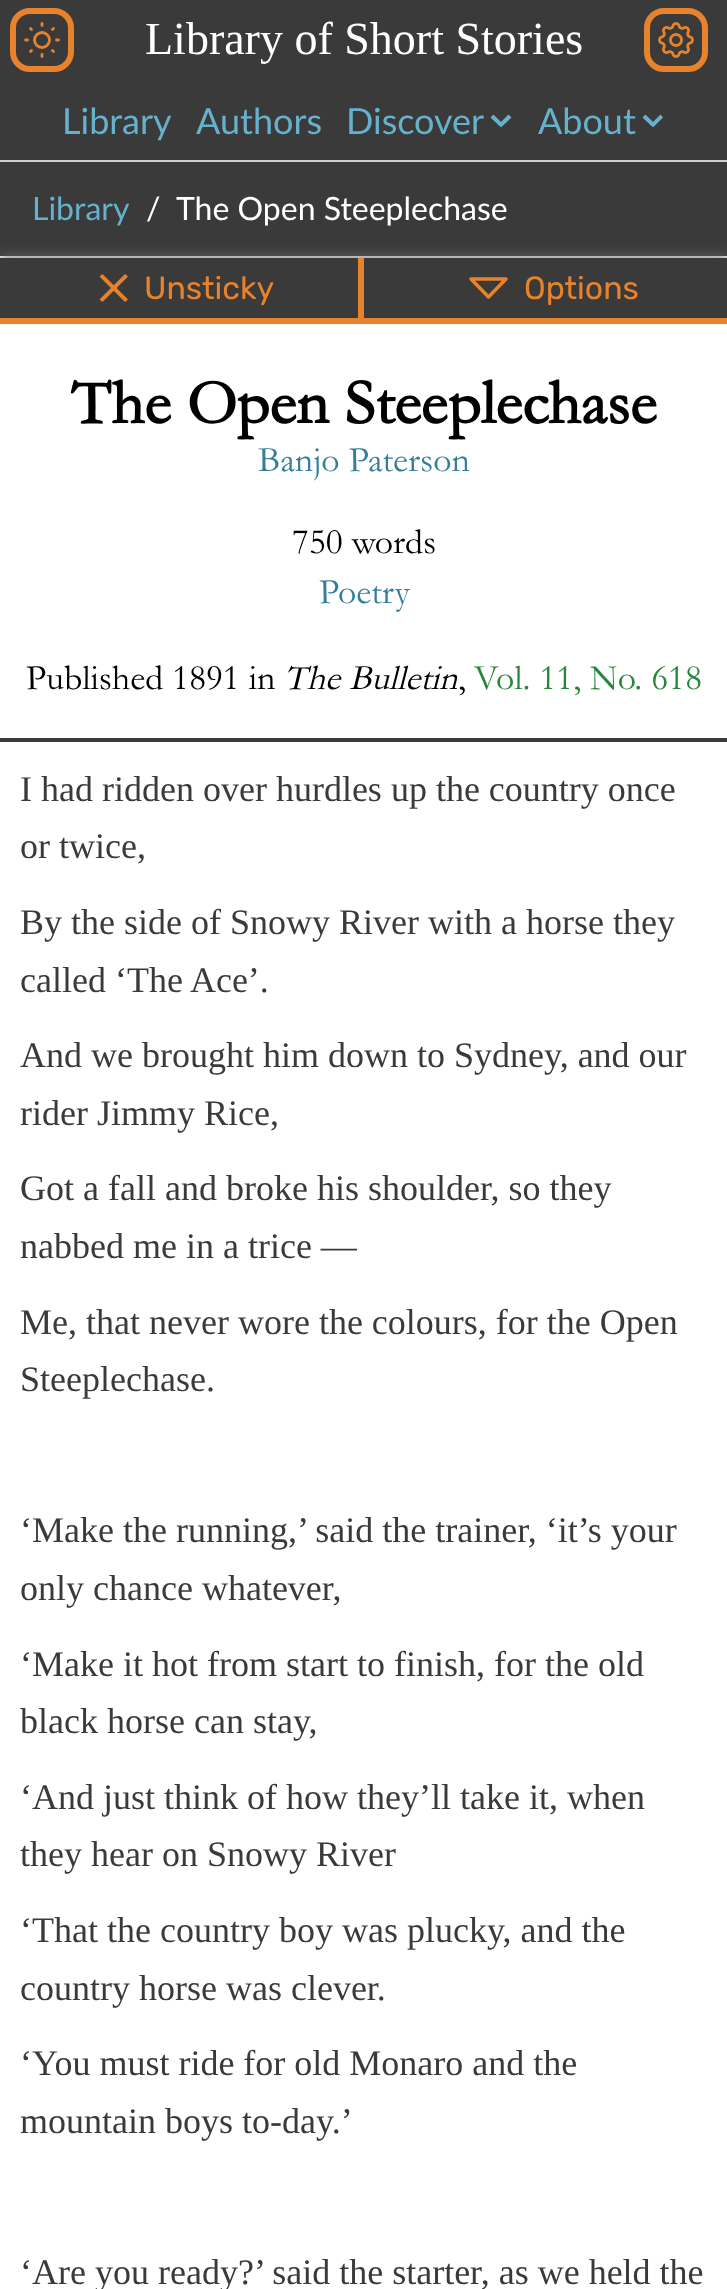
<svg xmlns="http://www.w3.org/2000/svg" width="727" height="2289">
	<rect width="100%" height="100%" fill="#FFFFFF" />
	<rect x="0" y="0" width="727" height="160" fill="#3A3A3A" />
	<rect x="13" y="11" width="58" height="58" rx="17" fill="none" stroke="#E6832C" stroke-width="6" />
	<circle cx="42" cy="40" r="7.5" fill="none" stroke="#E6832C" stroke-width="2.8" />
	<path d="M25.5 40H27.5M42 23.5V25.5M56.5 40H58.5M42 54.5V56.5M30.5 28.5L31.5 29.5M53.5 28.5L52.5 29.5M52.5 50.5L53.5 51.5M31.5 50.5L30.5 51.5" fill="none" stroke="#E6832C" stroke-width="2.8" stroke-linecap="round" stroke-linejoin="round" />
	<text x="145" y="54" font-family="Liberation Serif" font-size="46" fill="#FFFFFF">Library of Short Stories</text>
	<rect x="647" y="11" width="58" height="58" rx="17" fill="none" stroke="#E6832C" stroke-width="6" />
	<image x="658" y="22" width="36" height="36" href="assets/img1.png" />
	<rect x="0" y="160" width="727" height="2" fill="#CECECE" />
	<g font-family="Lato" font-size="36" fill="#66B1CC">
		<text x="62" y="134">Library</text>
		<text x="196" y="134">Authors</text>
		<text x="346" y="134">Discover</text>
	</g>
	<path d="M490.5 117.5L493.5 114.5L503.5 124.5L500.5 127Z" fill="#66B1CC" />
	<path d="M508.5 114.5L511.5 117.5L501.5 127L498.5 124.5Z" fill="#66B1CC" />
	<text x="538" y="134" font-family="Lato" font-size="36" fill="#66B1CC">About</text>
	<path d="M642.5 117.5L645.5 114.5L655.5 124.5L652.5 127Z" fill="#66B1CC" />
	<path d="M660.5 114.5L663 117.5L653.5 127L650.5 124.5Z" fill="#66B1CC" />
	<rect x="0" y="162" width="727" height="94" fill="#3A3A3A" />
	<text x="32" y="220" font-family="Lato" font-size="32" fill="#66B1CC">Library</text>
	<g font-family="Lato" font-size="32" fill="#FFFFFF">
		<text x="146" y="220">/</text>
		<text x="176" y="220">The Open Steeplechase</text>
	</g>
	<rect x="0" y="252" width="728" height="66" fill="#64646F" fill-opacity="0.55" filter="blur(5px)" />
	<rect x="0" y="258" width="727" height="60" fill="#3A3A3A" />
	<rect x="0" y="318" width="727" height="6" fill="#E6832C" />
	<rect x="358" y="258" width="6" height="60" fill="#E6832C" />
	<path d="M102.5 274L128 299.5L125 302L99.5 276.5Z" fill="#E6832C" />
	<path d="M99.5 299.5L125 274L128 276.5L102.5 302Z" fill="#E6832C" />
	<text x="144" y="299" font-family="Rubik" font-size="32" font-weight="300" fill="#E6832C">Unsticky</text>
	<path d="M471 279L488.5 297L506 279H471" fill="none" stroke="#E6832C" stroke-width="3.5" stroke-linecap="round" stroke-linejoin="round" />
	<text x="524" y="299" font-family="Rubik" font-size="32" font-weight="300" fill="#E6832C">Options</text>
	<text x="71" y="423" font-family="Garamond" font-size="64" font-weight="700" fill="#000000">The Open Steeplechase</text>
	<text x="258" y="471" font-family="Garamond" font-size="36" fill="#337E99">Banjo Paterson</text>
	<text x="292" y="553" font-family="Garamond" font-size="36" fill="#000000">750 words</text>
	<text x="319" y="603" font-family="Garamond" font-size="36" fill="#337E99">Poetry</text>
	<text x="26" y="689" font-family="Garamond" font-size="36" fill="#000000">Published 1891 in</text>
	<text x="284" y="689" font-family="Garamond" font-size="36" font-style="italic" fill="#000000">The Bulletin</text>
	<text x="458" y="689" font-family="Garamond" font-size="36" fill="#000000">,</text>
	<text x="474" y="689" font-family="Garamond" font-size="36" fill="#26873B">Vol. 11, No. 618</text>
	<rect x="0" y="738" width="727" height="4" fill="#3A3A3A" />
	<g font-family="Liberation Serif" font-size="36" fill="#3A3A3A">
		<text x="20" y="801">I had ridden over hurdles up the country once</text>
		<text x="20" y="858">or twice,</text>
		<text x="20" y="934">By the side of Snowy River with a horse they</text>
		<text x="20" y="992">called ‘The Ace’.</text>
		<text x="20" y="1067">And we brought him down to Sydney, and our</text>
		<text x="20" y="1125">rider Jimmy Rice,</text>
		<text x="20" y="1200">Got a fall and broke his shoulder, so they</text>
		<text x="20" y="1258">nabbed me in a trice —</text>
		<text x="20" y="1334">Me, that never wore the colours, for the Open</text>
		<text x="20" y="1391">Steeplechase.</text>
		<text x="20" y="1542">‘Make the running,’ said the trainer, ‘it’s your</text>
		<text x="20" y="1600">only chance whatever,</text>
		<text x="20" y="1676">‘Make it hot from start to finish, for the old</text>
		<text x="20" y="1733">black horse can stay,</text>
		<text x="20" y="1809">‘And just think of how they’ll take it, when</text>
		<text x="20" y="1866">they hear on Snowy River</text>
		<text x="20" y="1942">‘That the country boy was plucky, and the</text>
		<text x="20" y="2000">country horse was clever.</text>
		<text x="20" y="2075">‘You must ride for old Monaro and the</text>
		<text x="20" y="2133">mountain boys to-day.’</text>
		<text x="20" y="2284">‘Are you ready?’ said the starter, as we held the</text>
	</g>
</svg>
